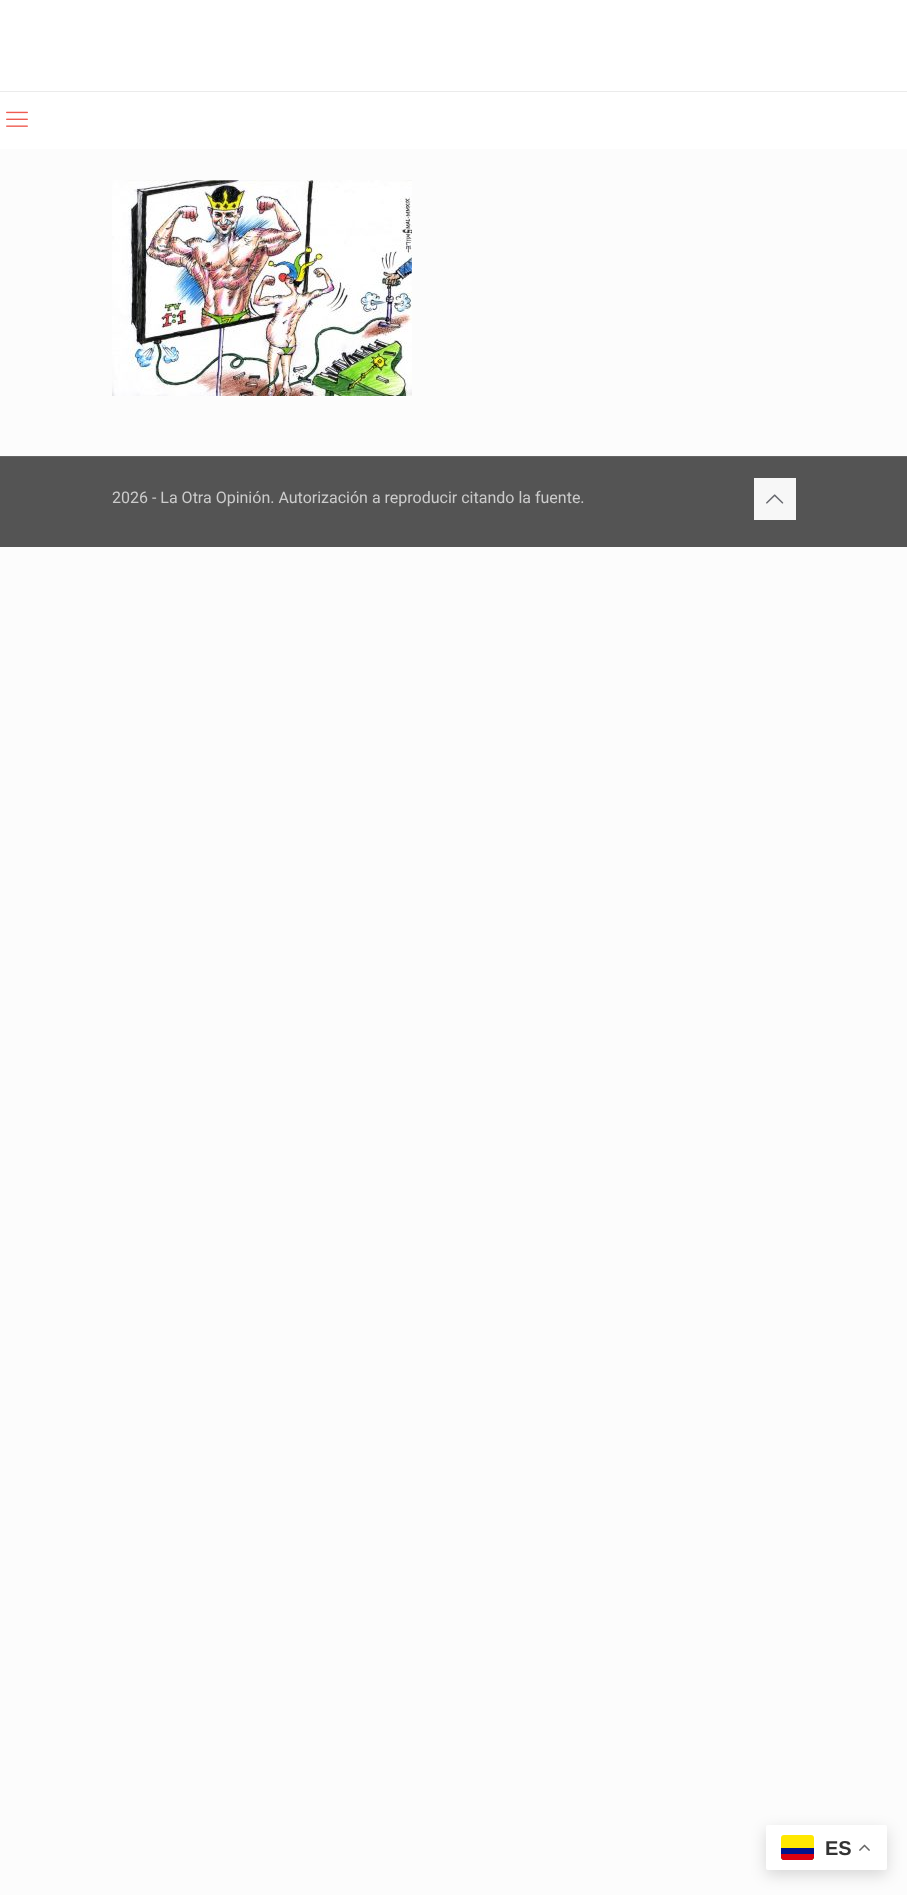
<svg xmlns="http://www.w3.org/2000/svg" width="907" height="1895">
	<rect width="100%" height="100%" fill="#FCFCFC" />
	<rect x="0" y="0" width="907" height="149" fill="#FFFFFF" />
	<rect x="0" y="91" width="907" height="1" fill="#EBEBEB" />
	<image x="6" y="111" width="22" height="16" href="assets/img1.png" />
	<image x="112" y="180" width="300" height="216" href="assets/img2.png" />
	<rect x="0" y="457" width="907" height="90" fill="#545454" />
	<rect x="0" y="456" width="907" height="1" fill="#656565" />
	<text x="112" y="503" font-family="Roboto" font-size="16" fill="#CCCCCC">2026 - La Otra Opinión. Autorización a reproducir citando la fuente.</text>
	<rect x="754" y="478" width="42" height="42" fill="#F7F7F7" />
	<image x="766" y="494" width="18" height="10" href="assets/img3.png" />
	<rect x="766" y="1830" width="121" height="45" rx="2" fill="#000000" fill-opacity="0.15" filter="blur(7.5px)" />
	<rect x="766" y="1825" width="121" height="45" rx="2" fill="#FFFFFF" />
	<rect x="781" y="1835" width="33" height="25" rx="3" fill="#FFE800" />
	<path d="M781 1848H814V1857C814 1858.5 812.5 1860 811 1860H784C782.5 1860 781 1858.5 781 1857Z" fill="#00148E" />
	<path d="M781 1854H814V1857C814 1858.5 812.5 1860 811 1860H784C782.5 1860 781 1858.5 781 1857Z" fill="#DA0010" />
	<text x="825" y="1855" font-family="Liberation Sans" font-size="20" font-weight="700" fill="#333333">ES</text>
	<image x="859" y="1844" width="11" height="7" href="assets/img4.png" />
</svg>
